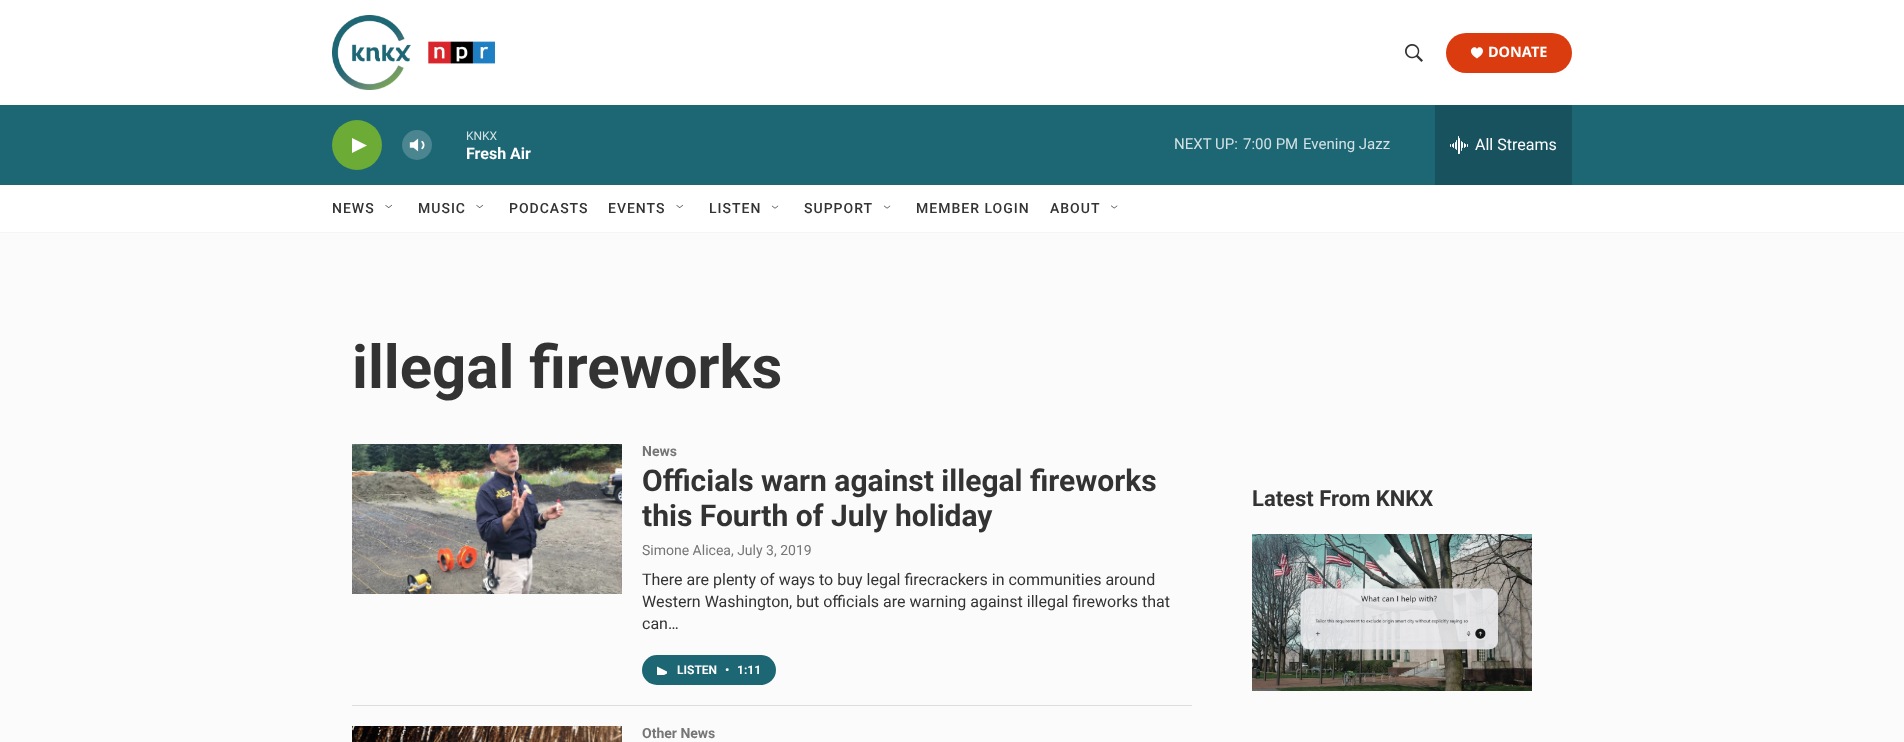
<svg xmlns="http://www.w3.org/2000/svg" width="1904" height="742">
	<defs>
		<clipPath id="clip1"><rect x="657" y="665" width="10" height="10" /></clipPath>
	</defs>
	<rect width="100%" height="100%" fill="#FBFBFB" />
	<rect x="0" y="0" width="1904" height="232" fill="#FFFFFF" />
	<rect x="0" y="232" width="1904" height="1" fill="#F5F5F5" />
	<image x="332" y="15" width="163" height="75" href="assets/img1.png" />
	<image x="1405" y="44" width="18" height="18" href="assets/img2.png" />
	<rect x="1446" y="33" width="126" height="40" rx="20" fill="#DB3C0F" />
	<path d="M1477 49C1475 44 1464.5 51 1477 58.5C1489.5 51 1479 44 1477 49Z" fill="#FFFFFF" />
	<text x="1488" y="57" font-family="Noto Sans" font-size="14.5" font-weight="700" fill="#FFFFFF">DONATE</text>
	<rect x="0" y="105" width="1904" height="80" fill="#1D6775" />
	<circle cx="357" cy="145" r="25" fill="#6CAB36" />
	<path d="M352 138L367 145.5L352 153Z" fill="#FFFFFF" />
	<image x="409" y="138" width="16" height="14" href="assets/img3.png" />
	<circle cx="417" cy="145" r="15" fill="#FFFFFF" fill-opacity="0.2" />
	<text x="466" y="140" font-family="'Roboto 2'" font-size="12" fill="#D2E1E3">KNKX</text>
	<text x="466" y="159" font-family="'Roboto 2'" font-size="16" font-weight="700" fill="#FFFFFF">Fresh Air</text>
	<g font-family="'Roboto 2'" font-size="15" fill="#D2E1E3">
		<text x="1174" y="149">NEXT UP:</text>
		<text x="1243" y="149">7:00 PM</text>
		<text x="1303" y="149">Evening Jazz</text>
	</g>
	<rect x="1435" y="105" width="137" height="80" fill="#17525E" />
	<image x="1450" y="136" width="18" height="18" href="assets/img4.png" />
	<text x="1475" y="150" font-family="'Roboto 2'" font-size="16" fill="#FFFFFF">All Streams</text>
	<text x="332" y="213" font-family="Roboto" font-size="14" font-weight="500" letter-spacing="1" fill="#333333">NEWS</text>
	<image x="385" y="204" width="7" height="4" href="assets/img5.png" />
	<text x="418" y="213" font-family="Roboto" font-size="14" font-weight="500" letter-spacing="1" fill="#333333">MUSIC</text>
	<image x="476" y="204" width="7" height="4" href="assets/img6.png" />
	<g font-family="Roboto" font-size="14" font-weight="500" letter-spacing="1" fill="#333333">
		<text x="509" y="213">PODCASTS</text>
		<text x="608" y="213">EVENTS</text>
	</g>
	<image x="676" y="204" width="7" height="4" href="assets/img7.png" />
	<text x="709" y="213" font-family="Roboto" font-size="14" font-weight="500" letter-spacing="1" fill="#333333">LISTEN</text>
	<image x="771" y="205" width="8" height="4" href="assets/img8.png" />
	<text x="804" y="213" font-family="Roboto" font-size="14" font-weight="500" letter-spacing="1" fill="#333333">SUPPORT</text>
	<image x="883" y="205" width="8" height="4" href="assets/img9.png" />
	<g font-family="Roboto" font-size="14" font-weight="500" letter-spacing="1" fill="#333333">
		<text x="916" y="213">MEMBER LOGIN</text>
		<text x="1050" y="213">ABOUT</text>
	</g>
	<image x="1111" y="205" width="7" height="4" href="assets/img10.png" />
	<text x="352" y="388" font-family="Roboto" font-size="60" font-weight="700" fill="#333333">illegal fireworks</text>
	<rect x="352" y="705" width="840" height="1" fill="#DCDCDC" />
	<image x="352" y="444" width="270" height="150" href="assets/img11.png" />
	<text x="642" y="456" font-family="'Roboto 2'" font-size="14" font-weight="700" fill="#767676">News</text>
	<g font-family="'Roboto 2'" font-size="30" font-weight="700" fill="#333333">
		<text x="642" y="491">Officials warn against illegal fireworks</text>
		<text x="642" y="526">this Fourth of July holiday</text>
	</g>
	<text x="642" y="555" font-family="Roboto" font-size="14" fill="#767676">Simone Alicea, July 3, 2019</text>
	<g font-family="'Roboto 2'" font-size="16" fill="#333333">
		<text x="642" y="585">There are plenty of ways to buy legal firecrackers in communities around</text>
		<text x="642" y="607">Western Washington, but officials are warning against illegal fireworks that</text>
		<text x="642" y="629">can…</text>
	</g>
	<rect x="642" y="655" width="134" height="30" rx="15" fill="#1D6775" />
	<g clip-path="url(#clip1)">
		<path d="M657 666.5L669 672.5L657 678.5Z" fill="#FFFFFF" />
	</g>
	<g font-family="'Roboto 2'" font-size="12" font-weight="700" fill="#FFFFFF">
		<text x="677" y="674">LISTEN</text>
		<text x="725" y="674">•</text>
		<text x="737" y="674">1:11</text>
	</g>
	<image x="352" y="726" width="270" height="16" href="assets/img12.png" />
	<text x="642" y="738" font-family="'Roboto 2'" font-size="14" font-weight="700" fill="#767676">Other News</text>
	<text x="1252" y="506" font-family="Roboto" font-size="22" font-weight="700" fill="#333333">Latest From KNKX</text>
	<image x="1252" y="534" width="280" height="157" href="assets/img13.png" />
</svg>
